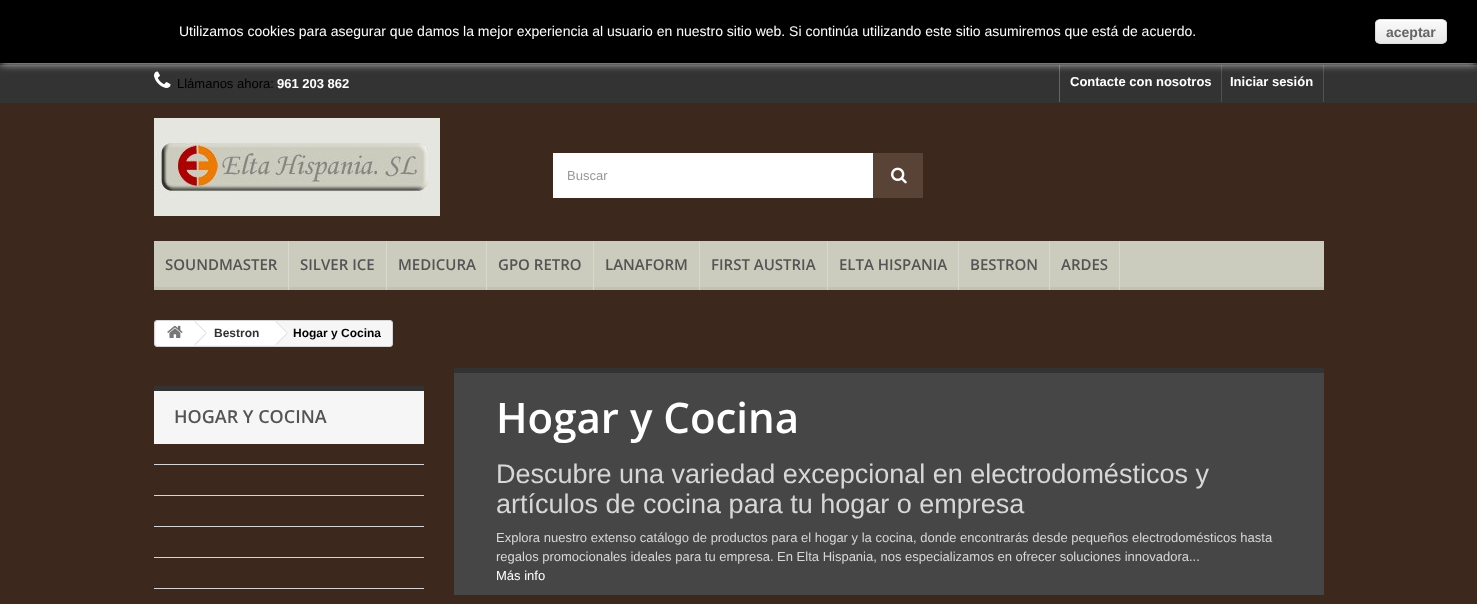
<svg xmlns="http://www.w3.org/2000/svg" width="1477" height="604">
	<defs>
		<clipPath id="clip1"><rect x="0" y="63" width="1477" height="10" /></clipPath>
		<clipPath id="clip2"><rect x="1375" y="19" width="72" height="25" rx="5" /></clipPath>
		<linearGradient id="g1" gradientUnits="userSpaceOnUse" x1="1376" y1="20" x2="1376" y2="43"><stop offset="0.05" stop-color="#F9F9F9" /><stop offset="1" stop-color="#E9E9E9" /></linearGradient>
	</defs>
	<rect width="100%" height="100%" fill="#3C281C" />
	<rect x="0" y="0" width="1477" height="65" fill="#000000" />
	<rect x="0" y="65" width="1477" height="38" fill="#333333" />
	<image x="154" y="71" width="17" height="17" href="assets/img1.png" />
	<rect x="1059" y="65" width="1" height="37" fill="#656565" />
	<rect x="1323" y="65" width="1" height="37" fill="#515151" />
	<rect x="1221" y="65" width="1" height="37" fill="#515151" />
	<g clip-path="url(#clip1)">
		<rect x="0" y="0" width="1477" height="63" fill="#FFFFFF" filter="blur(5px)" />
	</g>
	<text x="179" y="36" font-family="Liberation Sans" font-size="14" fill="#FFFFFF">Utilizamos cookies para asegurar que damos la mejor experiencia al usuario en nuestro sitio web. Si continúa utilizando este sitio asumiremos que está de acuerdo.</text>
	<g clip-path="url(#clip2)">
		<rect x="1375" y="20" width="72" height="23" fill="url(#g1)" />
	</g>
	<path d="M1380 21H1442C1444 21 1446 23 1446 25C1446 18 1437 20 1432 20H1390C1385 20 1376 18 1376 25C1376 23 1378 21 1380 21Z" fill="#FFFFFF" />
	<rect x="1375.5" y="19.5" width="71" height="24" rx="4.5" fill="none" stroke="#DCDCDC" />
	<text x="1386" y="37" font-family="Liberation Sans" font-size="14" font-weight="700" fill="#666666">aceptar</text>
	<text x="177" y="88" font-family="Liberation Sans" font-size="13" fill="#000000">Llámanos ahora:</text>
	<g font-family="Liberation Sans" font-size="13" font-weight="700" fill="#FFFFFF">
		<text x="277" y="88">961 203 862</text>
		<text x="1070" y="86">Contacte con nosotros</text>
		<text x="1230" y="86">Iniciar sesión</text>
	</g>
	<image x="154" y="118" width="286" height="98" href="assets/img2.png" />
	<rect x="553" y="153" width="320" height="45" fill="#FFFFFF" />
	<text x="567" y="180" font-family="Liberation Sans" font-size="13" fill="#999999">Buscar</text>
	<rect x="873" y="153" width="50" height="45" fill="#584336" />
	<image x="891" y="167" width="16" height="17" href="assets/img3.png" />
	<rect x="154" y="241" width="1170" height="46" fill="#CBCCBE" />
	<rect x="154" y="287" width="1170" height="3" fill="#C1C2B4" />
	<rect x="288" y="241" width="1" height="49" fill="#D8D9CE" />
	<text x="165" y="270" font-family="Open Sans" font-size="15" font-weight="600" fill="#555454">SOUNDMASTER</text>
	<rect x="386" y="241" width="1" height="49" fill="#D8D9CE" />
	<text x="300" y="270" font-family="Open Sans" font-size="15" font-weight="600" fill="#555454">SILVER ICE</text>
	<rect x="486" y="241" width="1" height="49" fill="#D8D9CE" />
	<text x="398" y="270" font-family="Open Sans" font-size="15" font-weight="600" fill="#555454">MEDICURA</text>
	<rect x="593" y="241" width="1" height="49" fill="#D8D9CE" />
	<text x="498" y="270" font-family="Open Sans" font-size="15" font-weight="600" fill="#555454">GPO RETRO</text>
	<rect x="699" y="241" width="1" height="49" fill="#D8D9CE" />
	<text x="605" y="270" font-family="Open Sans" font-size="15" font-weight="600" fill="#555454">LANAFORM</text>
	<rect x="827" y="241" width="1" height="49" fill="#D8D9CE" />
	<text x="711" y="270" font-family="Open Sans" font-size="15" font-weight="600" fill="#555454">FIRST AUSTRIA</text>
	<rect x="958" y="241" width="1" height="49" fill="#D8D9CE" />
	<text x="839" y="270" font-family="Open Sans" font-size="15" font-weight="600" fill="#555454">ELTA HISPANIA</text>
	<rect x="1049" y="241" width="1" height="49" fill="#D8D9CE" />
	<text x="970" y="270" font-family="Open Sans" font-size="15" font-weight="600" fill="#555454">BESTRON</text>
	<rect x="1119" y="241" width="1" height="49" fill="#D8D9CE" />
	<text x="1061" y="270" font-family="Open Sans" font-size="15" font-weight="600" fill="#555454">ARDES</text>
	<rect x="154.5" y="320.5" width="238" height="26" rx="2.5" fill="#F6F6F6" stroke="#D6D4D4" />
	<path d="M159 321H194V346H159C157.5 346 156 344.5 156 343V324C156 322.5 157.5 321 159 321Z" fill="#FFFFFF" />
	<image x="167" y="325" width="16" height="13" href="assets/img4.png" />
	<rect x="194" y="321" width="81" height="24" fill="#FFFFFF" />
	<path d="M195 321L206.5 332.5L206 333L194.5 321.5ZM206 333L206.5 333.5L195 345L194.5 344.5Z" fill="#D6D4D4" />
	<text x="214" y="337" font-family="Liberation Sans" font-size="12" font-weight="700" fill="#333333">Bestron</text>
	<path d="M277 321.5L287 331.5C287.5 332.5 287.5 333.5 287 334.5L277 344.5C276 345 275 345 274 344.5L264 334.5C263.5 333.5 263.5 332.5 264 331.5L274 321.5C275 321 276 321 277 321.5Z" fill="#FFFFFF" />
	<path d="M276 321L287.5 332.5L287 333L275.5 321.5ZM287 333L287.5 333.5L276 345L275.5 344.5Z" fill="#D6D4D4" />
	<text x="293" y="337" font-family="Liberation Sans" font-size="12" font-weight="700" fill="#000000">Hogar y Cocina</text>
	<rect x="154" y="391" width="270" height="53" fill="#F6F6F6" />
	<rect x="154" y="386" width="270" height="5" fill="#333333" />
	<text x="174" y="423" font-family="Open Sans" font-size="18" font-weight="600" fill="#555454">HOGAR Y COCINA</text>
	<rect x="154" y="464" width="270" height="1" fill="#D6D4D4" />
	<rect x="154" y="495" width="270" height="1" fill="#D6D4D4" />
	<rect x="154" y="526" width="270" height="1" fill="#D6D4D4" />
	<rect x="154" y="557" width="270" height="1" fill="#D6D4D4" />
	<rect x="154" y="588" width="270" height="1" fill="#D6D4D4" />
	<rect x="454" y="368" width="870" height="5" fill="#333333" />
	<rect x="454" y="373" width="870" height="222" fill="#464646" />
	<text x="496" y="433" font-family="Open Sans" font-size="42" font-weight="600" fill="#FFFFFF">Hogar y Cocina</text>
	<g font-family="Liberation Sans" font-size="27" fill="#D7D7D7">
		<text x="496" y="483">Descubre una variedad excepcional en electrodomésticos y</text>
		<text x="496" y="513">artículos de cocina para tu hogar o empresa</text>
	</g>
	<g font-family="Liberation Sans" font-size="13" fill="#D7D7D7">
		<text x="496" y="542">Explora nuestro extenso catálogo de productos para el hogar y la cocina, donde encontrarás desde pequeños electrodomésticos hasta</text>
		<text x="496" y="561">regalos promocionales ideales para tu empresa. En Elta Hispania, nos especializamos en ofrecer soluciones innovadora...</text>
	</g>
	<text x="496" y="580" font-family="Liberation Sans" font-size="13" fill="#FFFFFF">Más info</text>
</svg>
